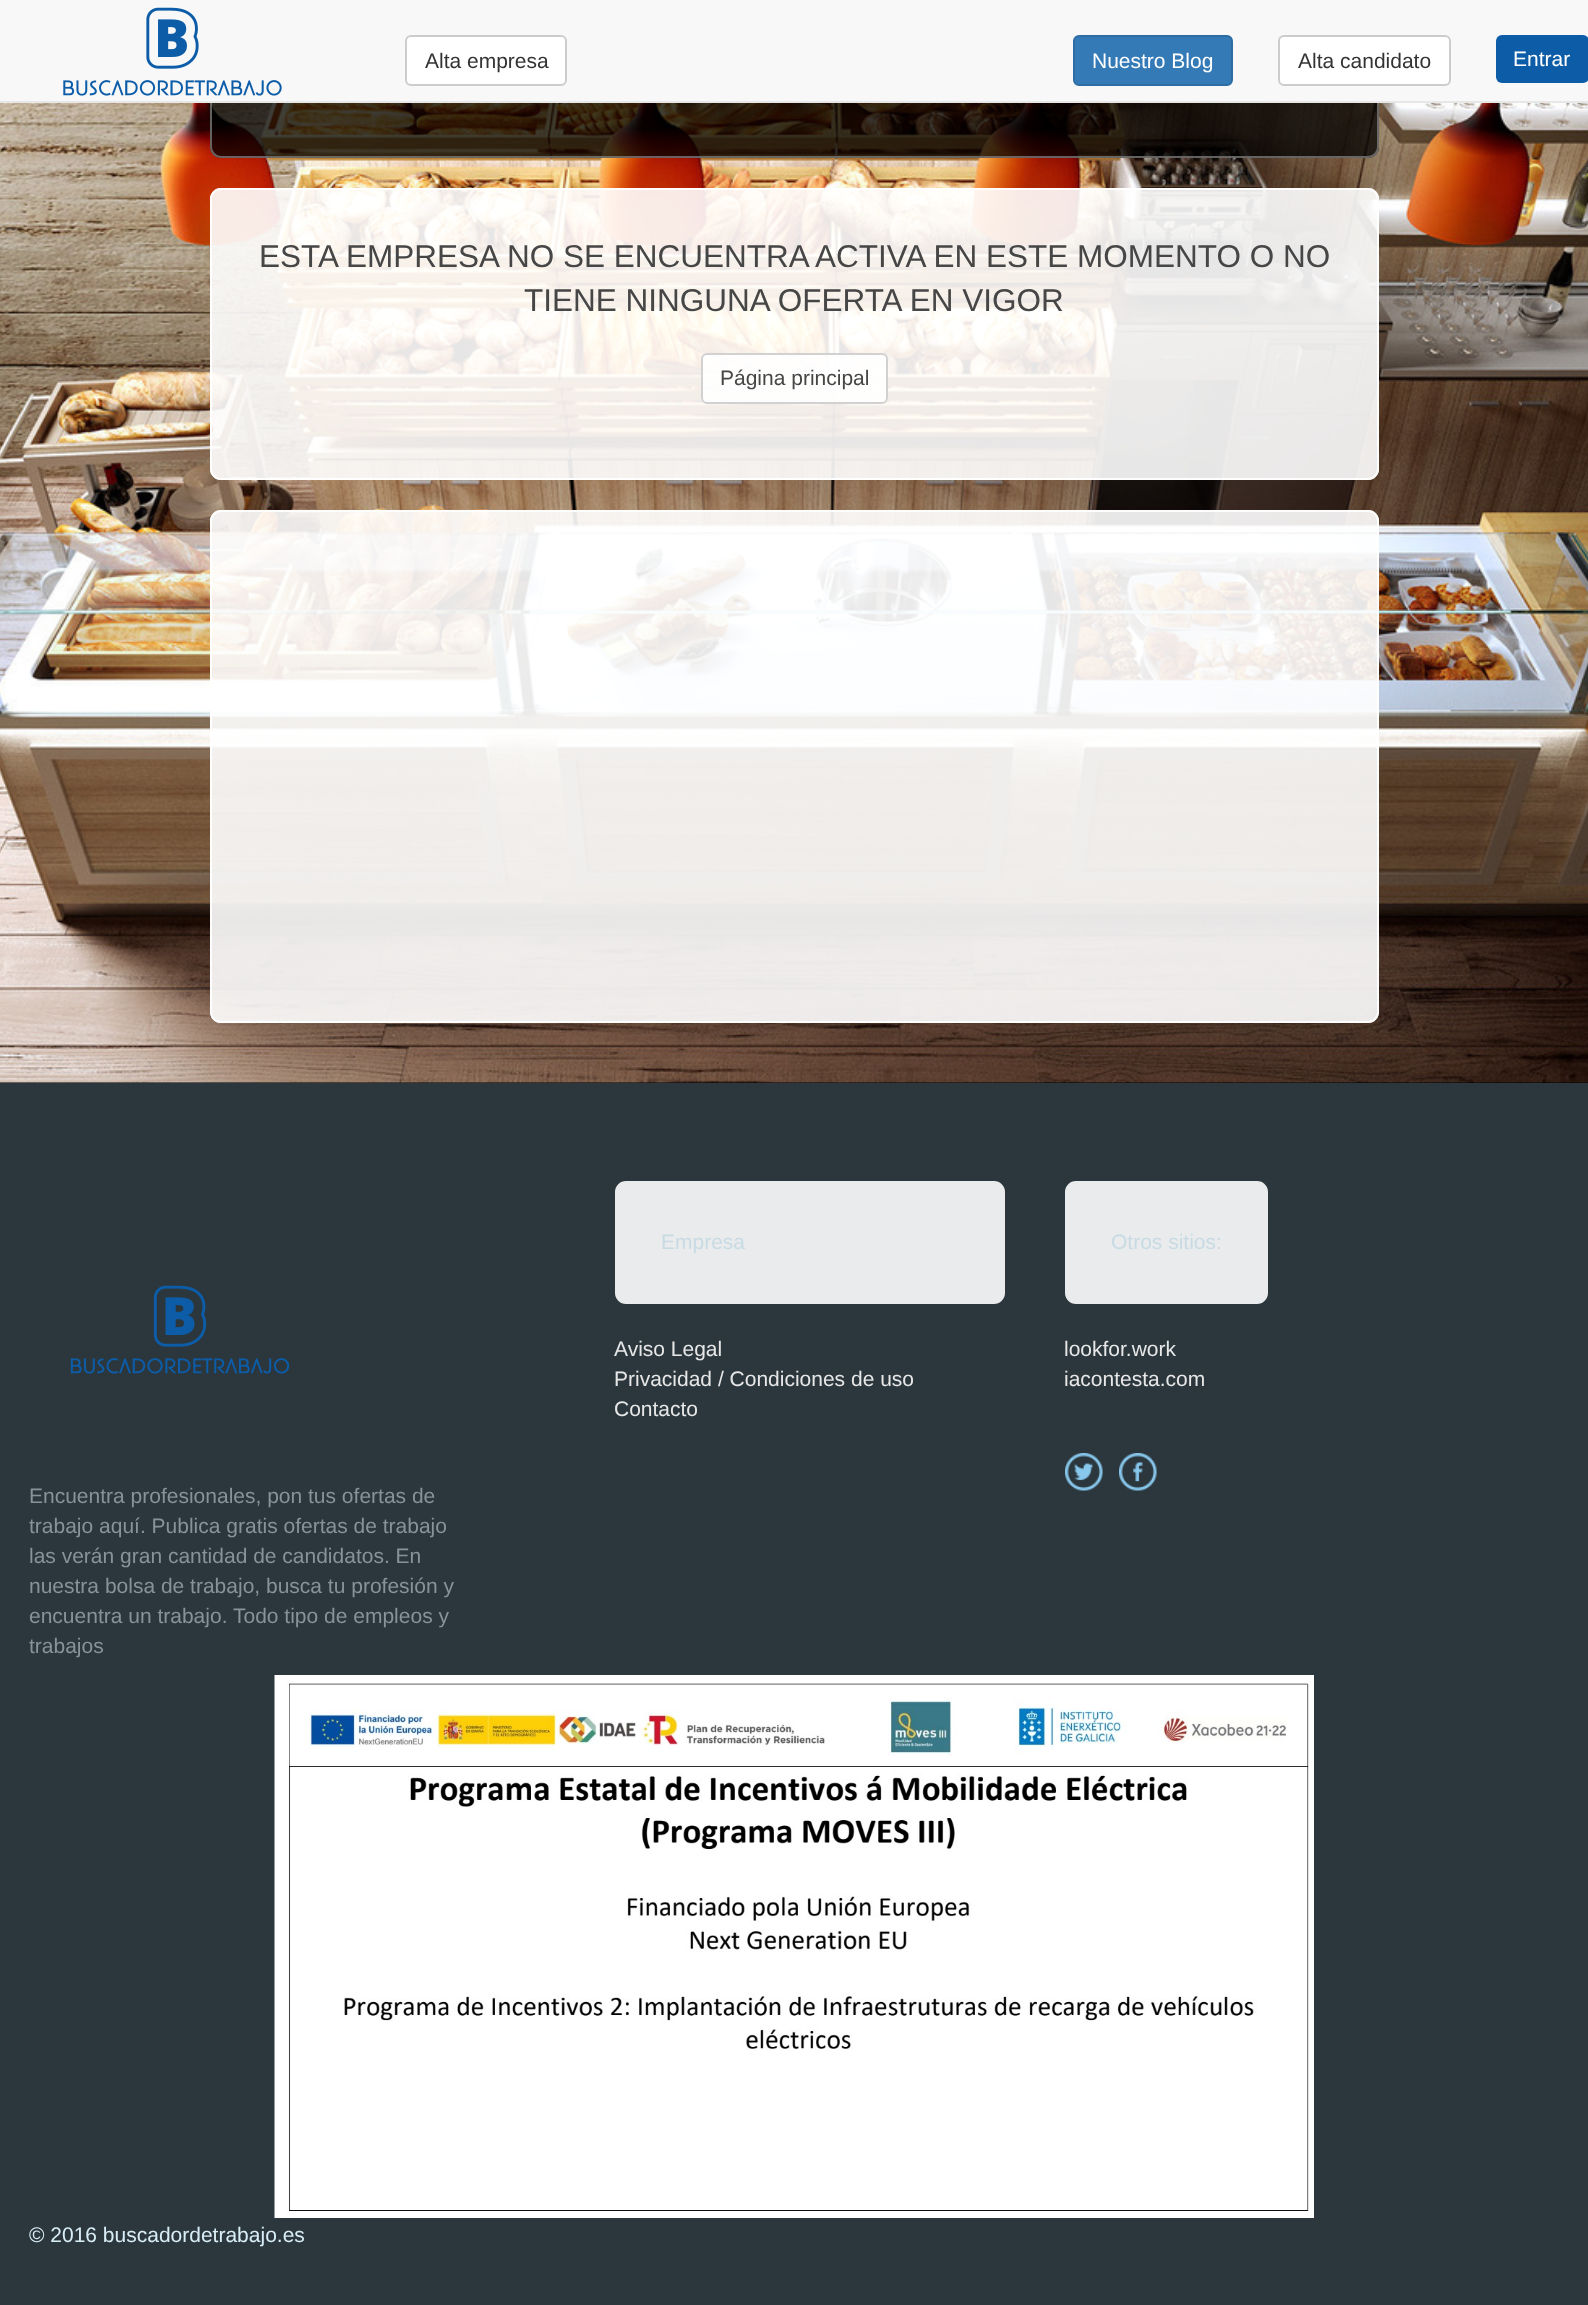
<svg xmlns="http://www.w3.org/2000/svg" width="1588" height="2305">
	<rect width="100%" height="100%" fill="#2B373D" />
	<rect x="0" y="1082" width="1588" height="1" fill="#000000" />
	<image x="0" y="103" width="1588" height="980" href="assets/img2.png" />
	<rect x="210" y="-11" width="1169" height="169" rx="11" fill="#000000" fill-opacity="0.75" />
	<rect x="211" y="-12" width="1167" height="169" rx="10" fill="none" stroke="#808080" stroke-opacity="0.75" stroke-width="2" />
	<rect x="0" y="0" width="1588" height="101" fill="#F8F8F8" />
	<rect x="0" y="101" width="1588" height="2" fill="#E7E7E7" />
	<image x="63" y="7" width="219" height="89" href="assets/img1.png" />
	<rect x="406" y="36" width="160" height="49" rx="5" fill="#FFFFFF" stroke="#CCCCCC" stroke-width="2" />
	<text x="425" y="68" font-family="Liberation Sans" font-size="21" fill="#333333">Alta empresa</text>
	<rect x="1074" y="36" width="158" height="49" rx="5" fill="#337AB7" stroke="#2E6DA4" stroke-width="2" />
	<text x="1092" y="68" font-family="Liberation Sans" font-size="21" fill="#FFFFFF">Nuestro Blog</text>
	<rect x="1279" y="36" width="171" height="49" rx="5" fill="#FFFFFF" stroke="#CCCCCC" stroke-width="2" />
	<text x="1298" y="68" font-family="Liberation Sans" font-size="21" fill="#333333">Alta candidato</text>
	<rect x="1496" y="35" width="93" height="48" rx="6" fill="#0C5CA8" />
	<text x="1513" y="66" font-family="Liberation Sans" font-size="21" fill="#FFFFFF">Entrar</text>
	<rect x="210" y="188" width="1169" height="292" rx="11" fill="#FFFFFF" fill-opacity="0.9" />
	<rect x="211" y="189" width="1167" height="290" rx="10" fill="none" stroke="#FFFFFF" stroke-opacity="0.9" stroke-width="2" />
	<g font-family="Liberation Sans" font-size="31.5" fill="#464646">
		<text x="259" y="267">ESTA EMPRESA NO SE ENCUENTRA ACTIVA EN ESTE MOMENTO O NO</text>
		<text x="524" y="311">TIENE NINGUNA OFERTA EN VIGOR</text>
	</g>
	<rect x="701" y="353" width="187" height="51" rx="6" fill="#FFFFFF" fill-opacity="0.9" />
	<rect x="702" y="354" width="185" height="49" rx="5" fill="none" stroke="#CCCCCC" stroke-opacity="0.9" stroke-width="2" />
	<text x="720" y="385" font-family="Liberation Sans" font-size="21" fill="#464646">Página principal</text>
	<rect x="210" y="510" width="1169" height="513" rx="11" fill="#FFFFFF" fill-opacity="0.9" />
	<rect x="211" y="511" width="1167" height="511" rx="10" fill="none" stroke="#FFFFFF" stroke-opacity="0.9" stroke-width="2" />
	<rect x="616" y="1182" width="388" height="121" rx="10" fill="#EAEBEC" stroke="#EAEBEC" stroke-width="2" />
	<text x="661" y="1249" font-family="Liberation Sans" font-size="21" fill="#C8DBE4">Empresa</text>
	<g font-family="Liberation Sans" font-size="21" fill="#E7E7E7">
		<text x="614" y="1356">Aviso Legal</text>
		<text x="614" y="1386">Privacidad / Condiciones de uso</text>
		<text x="614" y="1416">Contacto</text>
	</g>
	<rect x="1066" y="1182" width="201" height="121" rx="10" fill="#EAEBEC" stroke="#EAEBEC" stroke-width="2" />
	<text x="1111" y="1249" font-family="Liberation Sans" font-size="21" fill="#C8DBE4">Otros sitios:</text>
	<g font-family="Liberation Sans" font-size="21" fill="#E7E7E7">
		<text x="1064" y="1356">lookfor.work</text>
		<text x="1064" y="1386">iacontesta.com</text>
	</g>
	<image x="1065" y="1453" width="38" height="38" href="assets/img3.png" />
	<image x="1119" y="1453" width="38" height="38" href="assets/img4.png" />
	<image x="70" y="1285" width="220" height="89" href="assets/img5.png" />
	<g font-family="Liberation Sans" font-size="21" fill="#879299">
		<text x="29" y="1503">Encuentra profesionales, pon tus ofertas de</text>
		<text x="29" y="1533">trabajo aquí. Publica gratis ofertas de trabajo</text>
		<text x="29" y="1563">las verán gran cantidad de candidatos. En</text>
		<text x="29" y="1593">nuestra bolsa de trabajo, busca tu profesión y</text>
		<text x="29" y="1623">encuentra un trabajo.</text>
		<text x="233" y="1623">Todo tipo de empleos y</text>
		<text x="29" y="1653">trabajos</text>
	</g>
	<image x="274" y="1675" width="1040" height="543" href="assets/img6.png" />
	<text x="29" y="2242" font-family="Liberation Sans" font-size="21" fill="#D9EDF7">© 2016 buscadordetrabajo.es</text>
</svg>
